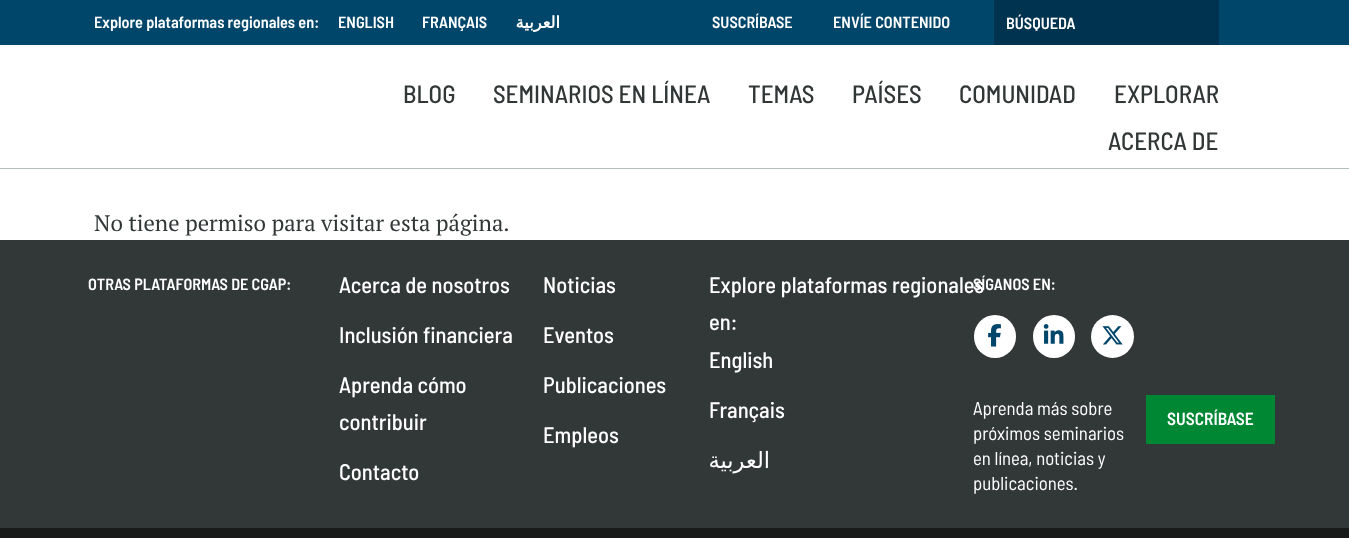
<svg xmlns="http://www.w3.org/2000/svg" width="1349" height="538">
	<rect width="100%" height="100%" fill="#FFFFFF" />
	<rect x="0" y="168" width="1349" height="1" fill="#B2C0C0" />
	<rect x="0" y="0" width="1349" height="45" fill="#00456A" />
	<g font-family="Barlow Semi Condensed" font-size="16.25" font-weight="600" fill="#FFFFFF">
		<text x="94" y="28">Explore plataformas regionales en:</text>
		<text x="338" y="28">ENGLISH</text>
		<text x="422" y="28">FRANÇAIS</text>
	</g>
	<text x="560" y="28" font-family="DejaVu Sans" font-size="16.25" font-weight="700" direction="rtl" fill="#FFFFFF">العربية</text>
	<g font-family="Barlow Semi Condensed" font-size="16.25" font-weight="600" fill="#FFFFFF">
		<text x="712" y="28">SUSCRÍBASE</text>
		<text x="833" y="28">ENVÍE CONTENIDO</text>
	</g>
	<rect x="994" y="0" width="225" height="45" fill="#00334F" />
	<text x="1006" y="29" font-family="Barlow Semi Condensed" font-size="16.25" font-weight="600" fill="#FFFFFF">BÚSQUEDA</text>
	<g font-family="Barlow Semi Condensed" font-size="25" font-weight="500" fill="#313737">
		<text x="403" y="103">BLOG</text>
		<text x="493" y="103">SEMINARIOS EN LÍNEA</text>
		<text x="748" y="103">TEMAS</text>
		<text x="852" y="103">PAÍSES</text>
		<text x="959" y="103">COMUNIDAD</text>
		<text x="1114" y="103">EXPLORAR</text>
		<text x="1108" y="150">ACERCA DE</text>
	</g>
	<text x="94" y="231" font-family="PT Serif" font-size="22.5" fill="#313737">No tiene permiso para visitar esta página.</text>
	<rect x="0" y="240" width="1349" height="288" fill="#323737" />
	<text x="88" y="290" font-family="Barlow Semi Condensed" font-size="16.25" font-weight="600" fill="#FFFFFF">OTRAS PLATAFORMAS DE CGAP:</text>
	<g font-family="Barlow Semi Condensed" font-size="22.5" font-weight="500" fill="#FFFFFF">
		<text x="339" y="293">Acerca de nosotros</text>
		<text x="339" y="343">Inclusión financiera</text>
		<text x="339" y="393">Aprenda cómo</text>
		<text x="339" y="430">contribuir</text>
		<text x="339" y="480">Contacto</text>
		<text x="543" y="293">Noticias</text>
		<text x="543" y="343">Eventos</text>
		<text x="543" y="393">Publicaciones</text>
		<text x="543" y="443">Empleos</text>
		<text x="709" y="293">Explore plataformas regionales</text>
		<text x="709" y="330">en:</text>
		<text x="709" y="368">English</text>
		<text x="709" y="418">Français</text>
	</g>
	<text x="770" y="468" font-family="DejaVu Sans" font-size="22.5" direction="rtl" fill="#FFFFFF">العربية</text>
	<text x="973" y="290" font-family="Barlow Semi Condensed" font-size="16.25" font-weight="600" fill="#FFFFFF">SÍGANOS EN:</text>
	<rect x="974" y="315" width="42" height="43" rx="21" fill="#FFFFFF" />
	<image x="988" y="324" width="13" height="23" href="assets/img1.png" />
	<rect x="1033" y="315" width="42" height="43" rx="21" fill="#FFFFFF" />
	<image x="1043" y="324" width="21" height="20" href="assets/img2.png" />
	<circle cx="1112.5" cy="336.5" r="21.5" fill="#FFFFFF" />
	<image x="1102" y="326" width="21" height="19" href="assets/img3.png" />
	<g font-family="Barlow Semi Condensed" font-size="18.75" fill="#FFFFFF">
		<text x="973" y="415">Aprenda más sobre</text>
		<text x="973" y="440">próximos seminarios</text>
		<text x="973" y="465">en línea, noticias y</text>
		<text x="973" y="490">publicaciones.</text>
	</g>
	<rect x="1146" y="395" width="129" height="49" fill="#008734" />
	<text x="1167" y="425" font-family="Barlow Semi Condensed" font-size="17.5" font-weight="600" fill="#FFFFFF">SUSCRÍBASE</text>
	<rect x="0" y="528" width="1349" height="10" fill="#191B1B" />
</svg>
